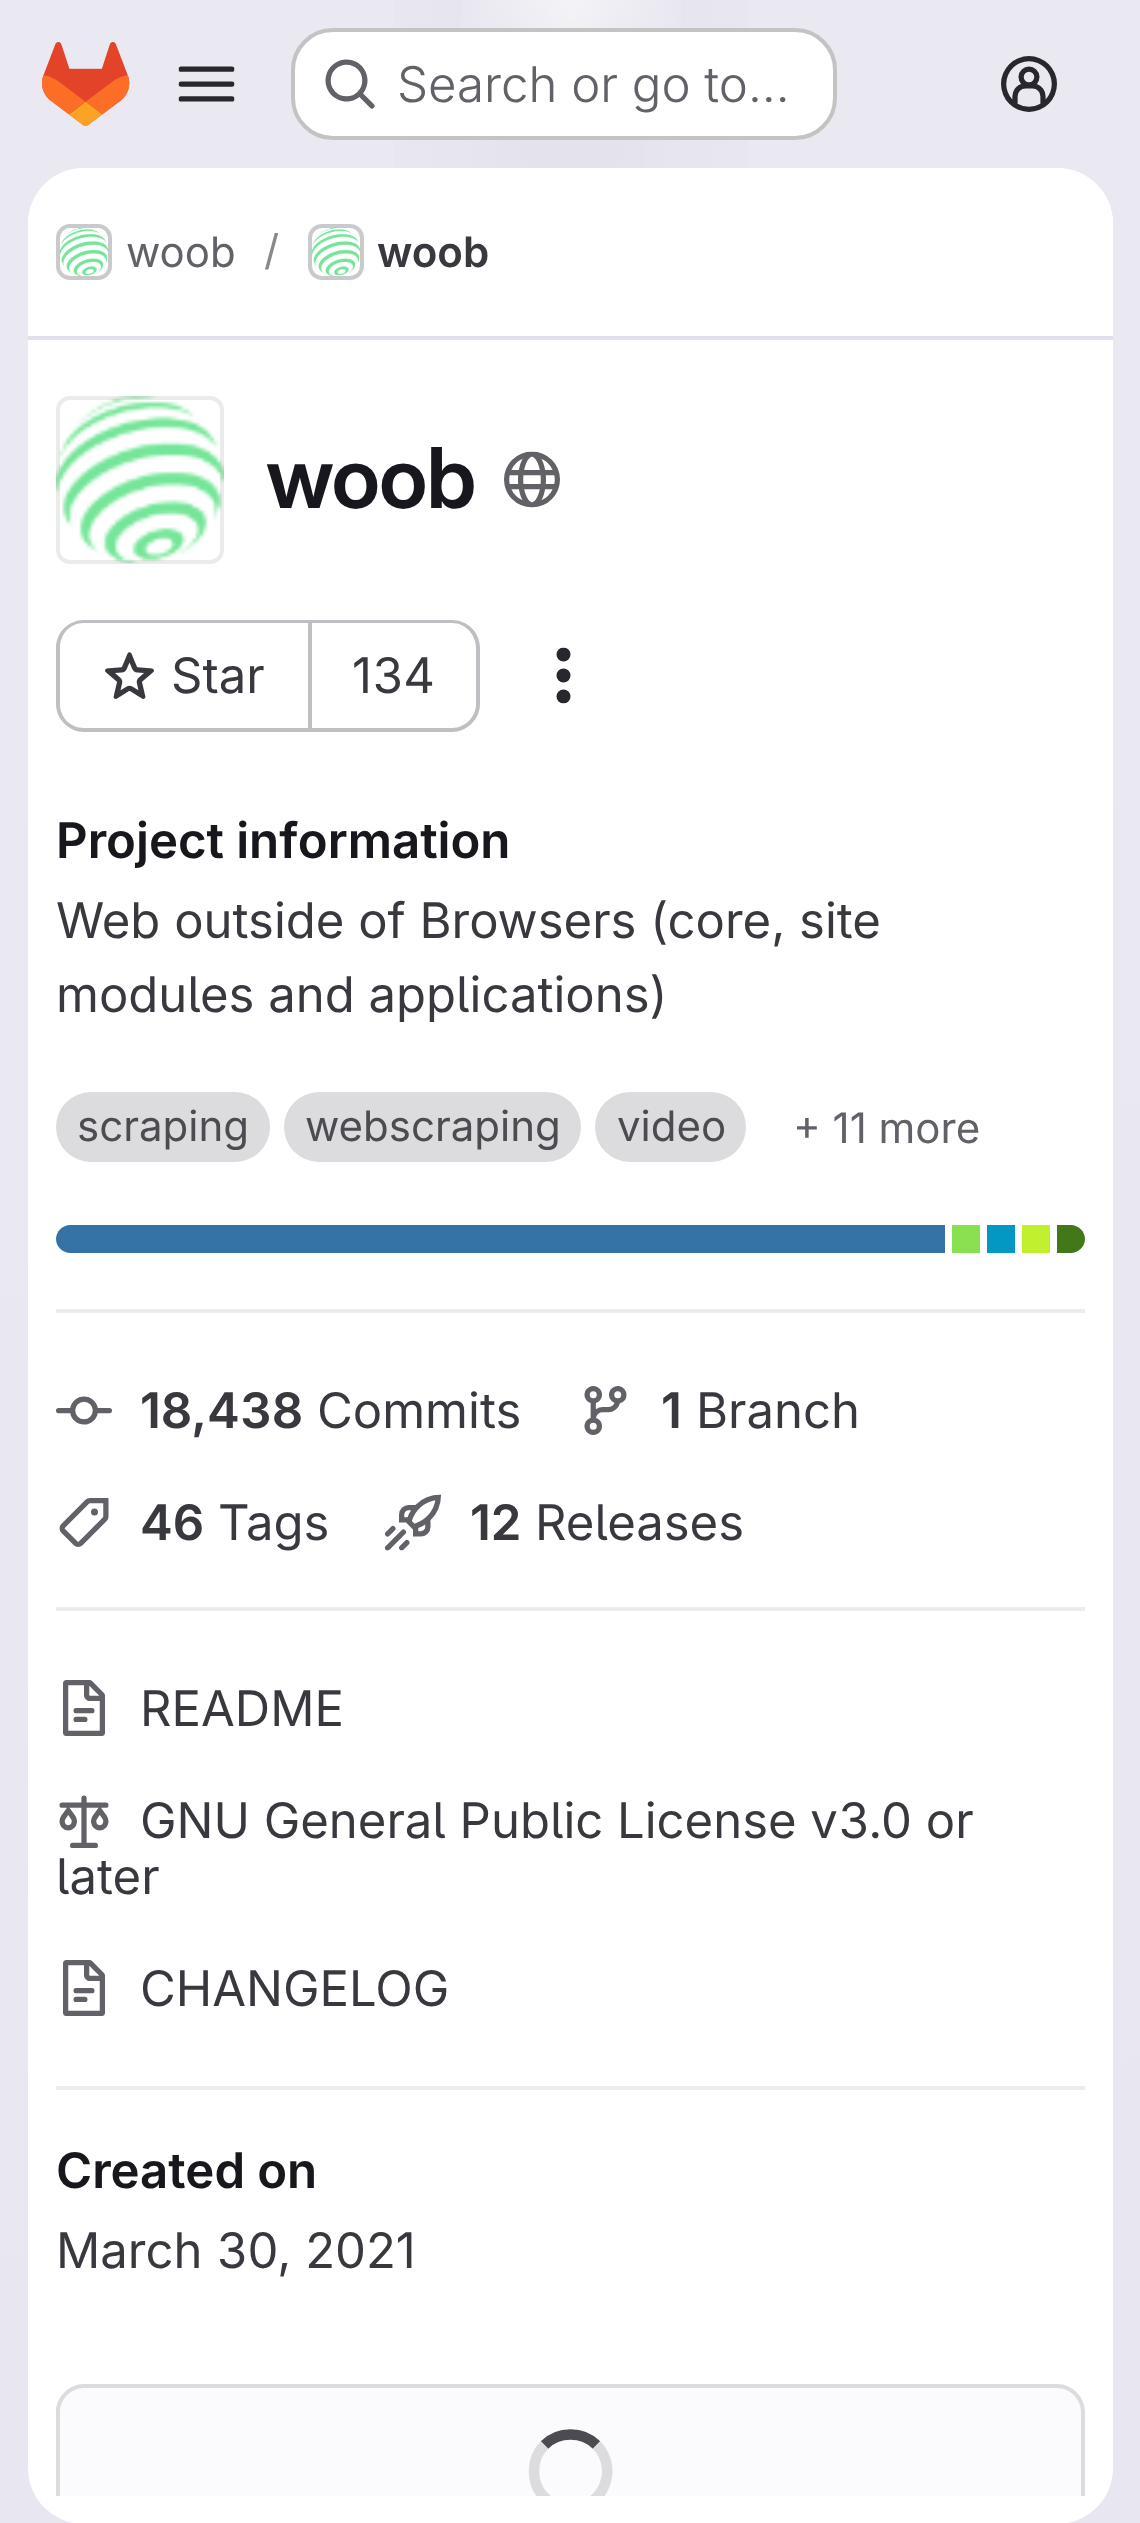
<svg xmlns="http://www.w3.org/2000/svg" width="1140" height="2523">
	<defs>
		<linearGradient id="g1" gradientUnits="userSpaceOnUse" x1="803" y1="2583" x2="338" y2="-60"><stop offset="0" stop-color="#E8E6F0" /><stop offset="0.7" stop-color="#EAE9F2" /></linearGradient>
		<radialGradient id="g2" gradientUnits="userSpaceOnUse" cx="0" cy="0" r="1" gradientTransform="matrix(571 0 0 2524 571 0)"><stop offset="0" stop-color="#E4E2ED" /><stop offset="0.43" stop-color="#E4E2ED" stop-opacity="0" /></radialGradient>
		<radialGradient id="g3" gradientUnits="userSpaceOnUse" cx="0" cy="0" r="1" gradientTransform="matrix(571 0 0 2524 571 0)"><stop offset="0" stop-color="#E4E2EC" /><stop offset="0.31" stop-color="#E4E2EC" stop-opacity="0" /></radialGradient>
		<radialGradient id="g4" gradientUnits="userSpaceOnUse" cx="571" cy="0" r="2587"><stop offset="0" stop-color="#FFFFFF" stop-opacity="0.6" /><stop offset="0.05" stop-color="#FFFFFF" stop-opacity="0" /></radialGradient>
		<clipPath id="clip1"><rect x="28" y="340" width="1085" height="2156" /></clipPath>
	</defs>
	<rect width="100%" height="100%" fill="#FFFFFF" />
	<rect x="0" y="0" width="1140" height="2523" fill="url(#g1)" />
	<rect x="394" y="0" width="354" height="168" fill="url(#g2)" />
	<rect x="497" y="15" width="148" height="152" fill="url(#g3)" />
	<rect x="461" y="0" width="220" height="28" fill="url(#g4)" />
	<image x="42" y="42" width="88" height="84" href="assets/img1.png" />
	<image x="178" y="66" width="57" height="36" href="assets/img2.png" />
	<rect x="291" y="28" width="546" height="112" rx="42" fill="#FFFFFF" />
	<rect x="293" y="30" width="542" height="108" rx="40" fill="none" stroke="#050506" stroke-opacity="0.24" stroke-width="4" />
	<image x="325" y="59" width="50" height="50" href="assets/img3.png" />
	<text x="397" y="102" font-family="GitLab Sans" font-size="49" font-weight="300" fill="#626168">Search or go to…</text>
	<image x="1001" y="56" width="56" height="56" href="assets/img4.png" />
	<rect x="28" y="168" width="1085" height="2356" rx="56" fill="#FFFFFF" />
	<path d="M84 168H1057C1088 168 1113 193 1113 224V340H28V224C28 193 53 168 84 168Z" fill="#FFFFFF" />
	<rect x="28" y="336" width="1085" height="4" fill="#E1DFEC" />
	<rect x="58" y="226" width="52" height="52" rx="12" fill="none" stroke="#DCDCDE" stroke-width="4" />
	<image x="59" y="227" width="50" height="50" href="assets/img5.png" />
	<rect x="58" y="226" width="52" height="52" rx="12" fill="none" stroke="#050506" stroke-opacity="0.08" stroke-width="4" />
	<text x="126" y="267" font-family="GitLab Sans" font-size="42" fill="#626168">woob</text>
	<text x="264" y="265" font-family="GitLab Sans" font-size="42" fill="#89888D">/</text>
	<rect x="310" y="226" width="52" height="52" rx="12" fill="none" stroke="#DCDCDE" stroke-width="4" />
	<image x="311" y="227" width="50" height="50" href="assets/img6.png" />
	<rect x="310" y="226" width="52" height="52" rx="12" fill="none" stroke="#050506" stroke-opacity="0.08" stroke-width="4" />
	<text x="377" y="267" font-family="'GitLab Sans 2'" font-size="42" font-weight="600" fill="#3A383F">woob</text>
	<image x="56" y="395" width="168" height="169" href="assets/img7.png" />
	<rect x="58" y="398" width="164" height="164" rx="12" fill="none" stroke="#050506" stroke-opacity="0.08" stroke-width="4" />
	<text x="266" y="508" font-family="GitLab Sans" font-size="84" font-weight="600" letter-spacing="-1" fill="#18171D">woob</text>
	<image x="504" y="451" width="56" height="57" href="assets/img8.png" />
	<path d="M84 620H308V732H84C69 732 56 719 56 704V648C56 632 69 620 84 620ZM84 623H308V728H84C70 728 60 717 60 704V648C60 634 70 623 84 623Z" fill="#BFBFC3" fill-rule="evenodd" />
	<image x="105" y="652" width="49" height="47" href="assets/img9.png" />
	<text x="171" y="693" font-family="GitLab Sans" font-size="49" fill="#3A383F">Star</text>
	<path d="M312 620H452C467 620 480 632 480 648V704C480 719 467 732 452 732H312ZM312 623H452C465 623 476 634 476 648V704C476 717 465 728 452 728H312Z" fill="#BFBFC3" fill-rule="evenodd" />
	<rect x="308" y="620" width="4" height="112" fill="#BFBFC3" />
	<text x="352" y="693" font-family="GitLab Sans" font-size="49" fill="#3A383F">134</text>
	<image x="556" y="647" width="15" height="57" href="assets/img10.png" />
	<rect x="56" y="1309" width="1029" height="4" fill="#ECECEF" />
	<text x="56" y="858" font-family="'GitLab Sans 2'" font-size="49" font-weight="600" fill="#18171D">Project information</text>
	<g font-family="GitLab Sans" font-size="49" fill="#3A383F">
		<text x="56" y="938">Web outside of Browsers (core, site</text>
		<text x="56" y="1012">modules and applications)</text>
	</g>
	<rect x="56" y="1092" width="214" height="70" rx="35" fill="#DCDCDE" />
	<text x="77" y="1141" font-family="GitLab Sans" font-size="42" fill="#4C4B51">scraping</text>
	<rect x="284" y="1092" width="297" height="70" rx="35" fill="#DCDCDE" />
	<text x="305" y="1141" font-family="GitLab Sans" font-size="42" fill="#4C4B51">webscraping</text>
	<rect x="595" y="1092" width="151" height="70" rx="35" fill="#DCDCDE" />
	<text x="617" y="1141" font-family="GitLab Sans" font-size="42" fill="#4C4B51">video</text>
	<text x="793" y="1143" font-family="GitLab Sans" font-size="42" fill="#626168">+ 11 more</text>
	<path d="M70 1225H945V1253H70C62.5 1253 56 1246.5 56 1239C56 1231.5 62.5 1225 70 1225Z" fill="#3572A5" />
	<rect x="952" y="1225" width="28" height="28" fill="#89E051" />
	<rect x="987" y="1225" width="28" height="28" fill="#0298C3" />
	<rect x="1022" y="1225" width="28" height="28" fill="#C1F12E" />
	<path d="M1057 1225H1071C1078.5 1225 1085 1231.5 1085 1239C1085 1246.5 1078.5 1253 1071 1253H1057Z" fill="#427819" />
	<rect x="56" y="1607" width="1029" height="4" fill="#ECECEF" />
	<image x="56" y="1396" width="56" height="29" href="assets/img11.png" />
	<text x="140" y="1428" font-family="'GitLab Sans 2'" font-size="49" font-weight="600" fill="#3A383F">18,438</text>
	<text x="317" y="1428" font-family="GitLab Sans" font-size="49" fill="#3A383F">Commits</text>
	<image x="584" y="1386" width="43" height="49" href="assets/img12.png" />
	<text x="661" y="1428" font-family="'GitLab Sans 2'" font-size="49" font-weight="600" fill="#3A383F">1</text>
	<text x="696" y="1428" font-family="GitLab Sans" font-size="49" fill="#3A383F">Branch</text>
	<image x="59" y="1498" width="50" height="49" href="assets/img13.png" />
	<text x="140" y="1540" font-family="'GitLab Sans 2'" font-size="49" font-weight="600" fill="#3A383F">46</text>
	<text x="218" y="1540" font-family="GitLab Sans" font-size="49" fill="#3A383F">Tags</text>
	<image x="385" y="1494" width="56" height="57" href="assets/img14.png" />
	<text x="470" y="1540" font-family="'GitLab Sans 2'" font-size="49" font-weight="600" fill="#3A383F">12</text>
	<text x="535" y="1540" font-family="GitLab Sans" font-size="49" fill="#3A383F">Releases</text>
	<rect x="56" y="2086" width="1029" height="4" fill="#ECECEF" />
	<image x="63" y="1680" width="42" height="56" href="assets/img15.png" />
	<text x="140" y="1726" font-family="GitLab Sans" font-size="49" fill="#3A383F">README</text>
	<image x="59" y="1795" width="50" height="53" href="assets/img16.png" />
	<g font-family="GitLab Sans" font-size="49" fill="#3A383F">
		<text x="140" y="1838">GNU General Public License v3.0 or</text>
		<text x="56" y="1894">later</text>
	</g>
	<image x="63" y="1960" width="42" height="56" href="assets/img15.png" />
	<text x="140" y="2006" font-family="GitLab Sans" font-size="49" fill="#3A383F">CHANGELOG</text>
	<text x="56" y="2188" font-family="'GitLab Sans 2'" font-size="49" font-weight="600" fill="#18171D">Created on</text>
	<text x="56" y="2268" font-family="GitLab Sans" font-size="49" fill="#3A383F">March 30, 2021</text>
	<path d="M84 2384H1057C1072.5 2384 1085 2396.5 1085 2412V2496H56V2412C56 2396.5 68.5 2384 84 2384Z" fill="#FBFAFD" />
	<g clip-path="url(#clip1)">
		<path d="M84 2384C69 2384 56 2397 56 2412V2517L60 2519V2412C60 2399 71 2388 84 2388H1057C1070 2388 1081 2399 1081 2412V2519L1085 2517V2412C1085 2397 1072 2384 1057 2384Z" fill="#DCDCDE" />
	</g>
	<path d="M544.5 2445C558.5 2431 582.5 2431 596.5 2445" fill="none" stroke="#4C4B51" stroke-width="10.5" />
	<g clip-path="url(#clip1)">
		<path d="M596.5 2445C605 2453.5 609 2466.5 606.5 2478C598 2521.5 533.5 2515 534 2471C534 2461.5 537.5 2452 544.5 2445" fill="none" stroke="#DCDCDE" stroke-width="10.5" />
	</g>
</svg>
